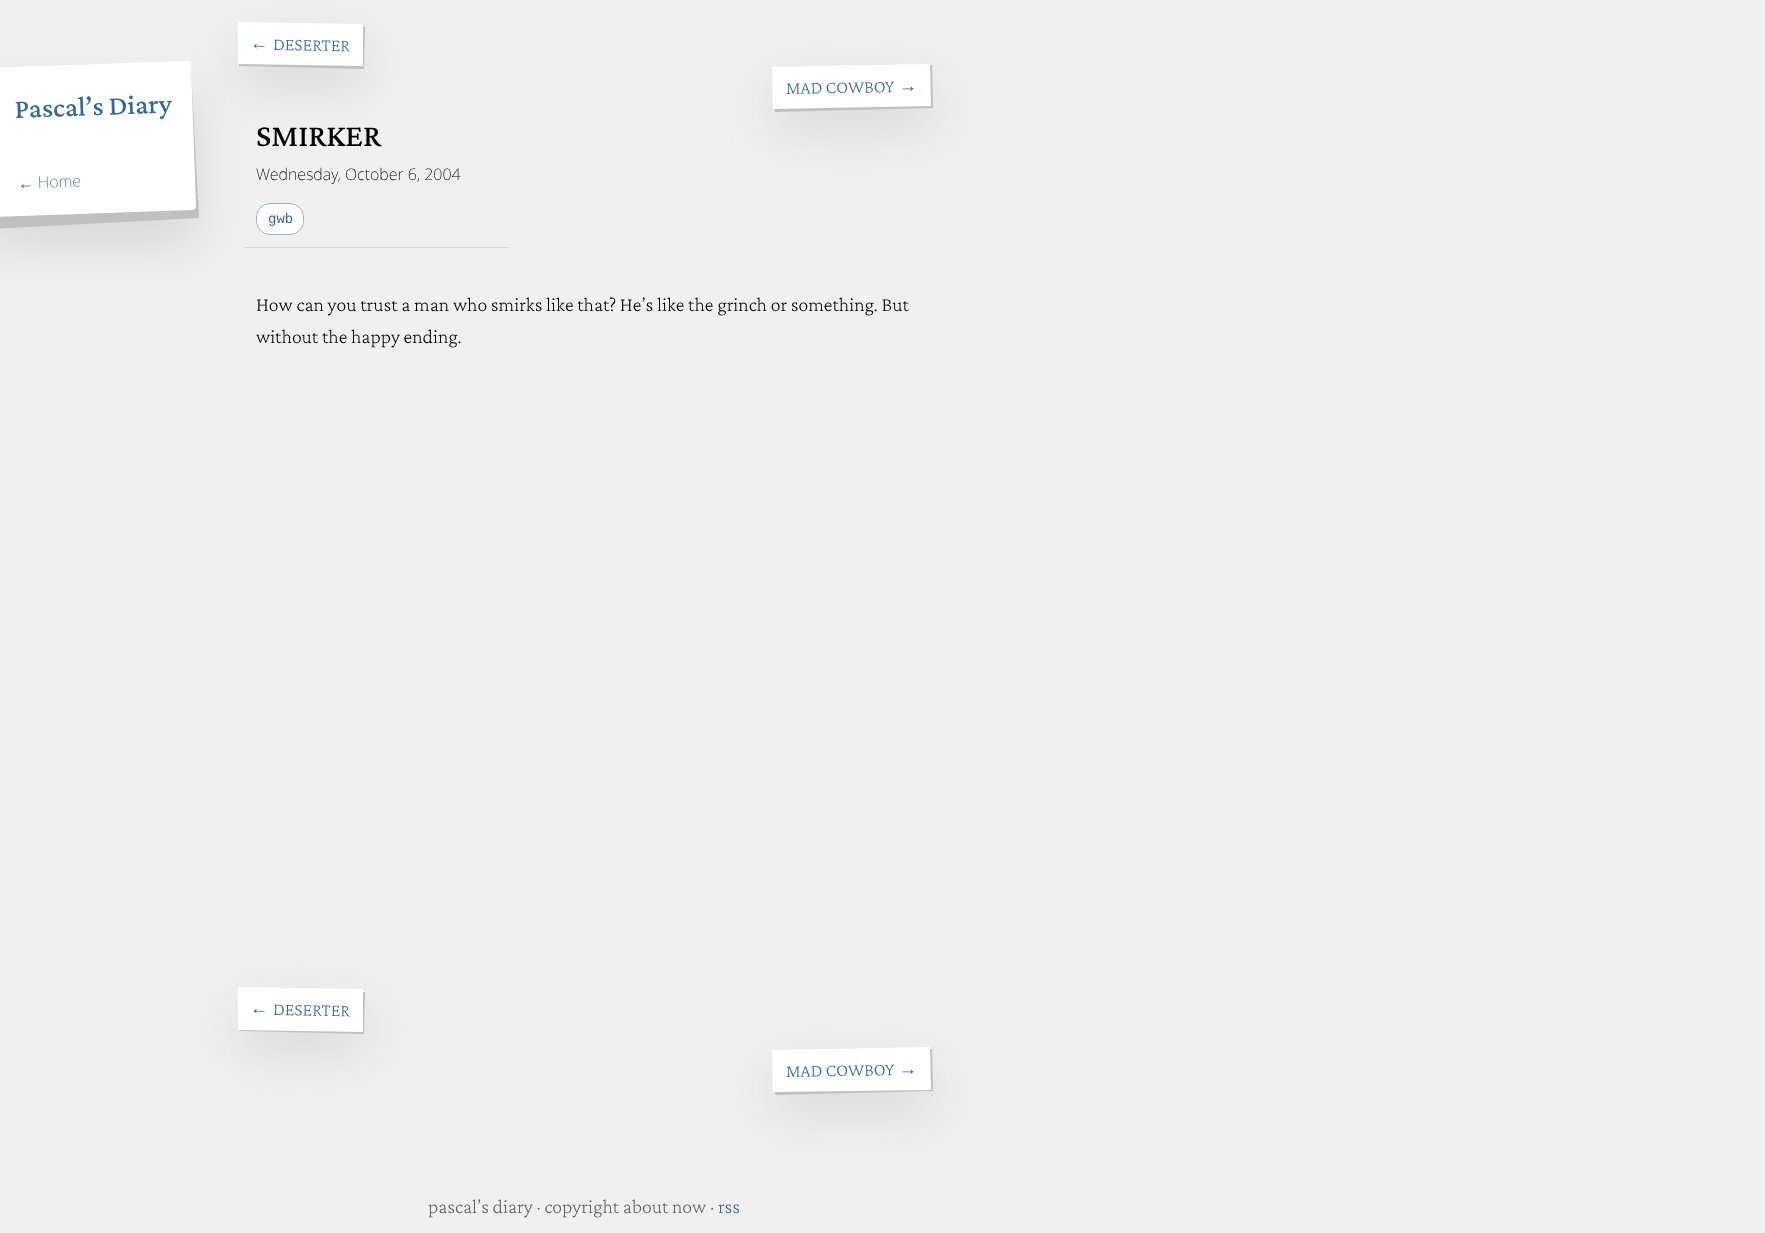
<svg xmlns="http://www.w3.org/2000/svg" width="1765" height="1233">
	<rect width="100%" height="100%" fill="#F0F0F0" />
	<rect x="240" y="43" width="125" height="42" fill="#000000" fill-opacity="0.1" filter="blur(25px)" />
	<path d="M240 23L365 27L364 69L239 66Z" fill="#C0C0C0" />
	<path d="M238 22L363 24V66L238 64Z" fill="#FFFFFF" />
	<rect x="244" y="247" width="265" height="1" fill="#D8D8D8" />
	<rect x="256" y="203" width="48" height="32" rx="14" fill="#FFFFFF" />
	<rect x="256.5" y="203.5" width="47" height="31" rx="13.5" fill="none" stroke="#386890" stroke-opacity="0.5" />
	<rect x="-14" y="94" width="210" height="150" fill="#000000" fill-opacity="0.1" filter="blur(25px)" />
	<path d="M-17 80L191 69L199 218L-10 229Z" fill="#C0C0C0" />
	<path d="M-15 68L186 61C189 60 191 62 191 64L196 206C196 209 194 210 192 210L-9 217C-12 218-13 216-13 214L-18 72C-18 69-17 68-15 68Z" fill="#FFFFFF" />
	<text x="15" y="118" transform="rotate(-2 15 118)" font-family="Crimson Pro" font-size="28" font-weight="500" fill="#386890">Pascal’s Diary</text>
	<text x="18" y="189" transform="rotate(-2 18 189)" font-family="Liberation Sans" font-size="16" fill="#386890">←</text>
	<text x="38" y="188" transform="rotate(-2 38 188)" font-family="Noto Sans" font-size="16" font-weight="200" fill="#386890">Home</text>
	<text x="250" y="49" transform="rotate(1 250 49)" font-family="Liberation Sans" font-size="18" fill="#386890">←</text>
	<text x="273" y="50" transform="rotate(1 273 50)" font-family="Crimson Pro" font-size="18" font-weight="200" fill="#386890">DESERTER</text>
	<rect x="774" y="85" width="158" height="43" fill="#C0C0C0" fill-opacity="0.5" filter="blur(25px)" />
	<path d="M774 69L932 65L933 108L775 112Z" fill="#C0C0C0" />
	<path d="M772 67L930 64L931 106L773 109Z" fill="#FFFFFF" />
	<text x="786" y="94" transform="rotate(-1 786 94)" font-family="Crimson Pro" font-size="18" font-weight="200" fill="#386890">MAD COWBOY</text>
	<text x="899" y="92" transform="rotate(-1 899 92)" font-family="Liberation Sans" font-size="18" fill="#386890">→</text>
	<text x="256" y="146" font-family="Crimson Pro" font-size="32" font-weight="500" fill="#000000">SMIRKER</text>
	<text x="256" y="180" font-family="Noto Sans" font-size="16" font-weight="200" fill="#000000">Wednesday, October 6, 2004</text>
	<text x="268" y="223" font-family="Liberation Mono" font-size="14" fill="#386890">gwb</text>
	<g font-family="Crimson Pro" font-size="20" font-weight="200" fill="#000000">
		<text x="256" y="311">How can you trust a man who smirks like that? He’s like the grinch or something. But</text>
		<text x="256" y="343">without the happy ending.</text>
	</g>
	<rect x="240" y="1008" width="125" height="43" fill="#C0C0C0" fill-opacity="0.5" filter="blur(25px)" />
	<path d="M240 989L365 992L364 1034L239 1031Z" fill="#C0C0C0" />
	<path d="M238 987L363 989V1032L238 1030Z" fill="#FFFFFF" />
	<text x="250" y="1014" transform="rotate(1 250 1014)" font-family="Liberation Sans" font-size="18" fill="#386890">←</text>
	<text x="273" y="1015" transform="rotate(1 273 1015)" font-family="Crimson Pro" font-size="18" font-weight="200" fill="#386890">DESERTER</text>
	<rect x="774" y="1069" width="158" height="42" fill="#C0C0C0" fill-opacity="0.5" filter="blur(25px)" />
	<path d="M774 1053L932 1049L933 1091L775 1095Z" fill="#C0C0C0" />
	<path d="M772 1050L930 1047L931 1090L773 1092Z" fill="#FFFFFF" />
	<text x="786" y="1077" transform="rotate(-1 786 1077)" font-family="Crimson Pro" font-size="18" font-weight="200" fill="#386890">MAD COWBOY</text>
	<text x="899" y="1075" transform="rotate(-1 899 1075)" font-family="Liberation Sans" font-size="18" fill="#386890">→</text>
	<text x="428" y="1213" font-family="Crimson Pro" font-size="20" font-weight="200" fill="#606060">pascal’s diary · copyright about now ·</text>
	<text x="718" y="1213" font-family="Crimson Pro" font-size="20" font-weight="200" fill="#386890">rss</text>
</svg>
